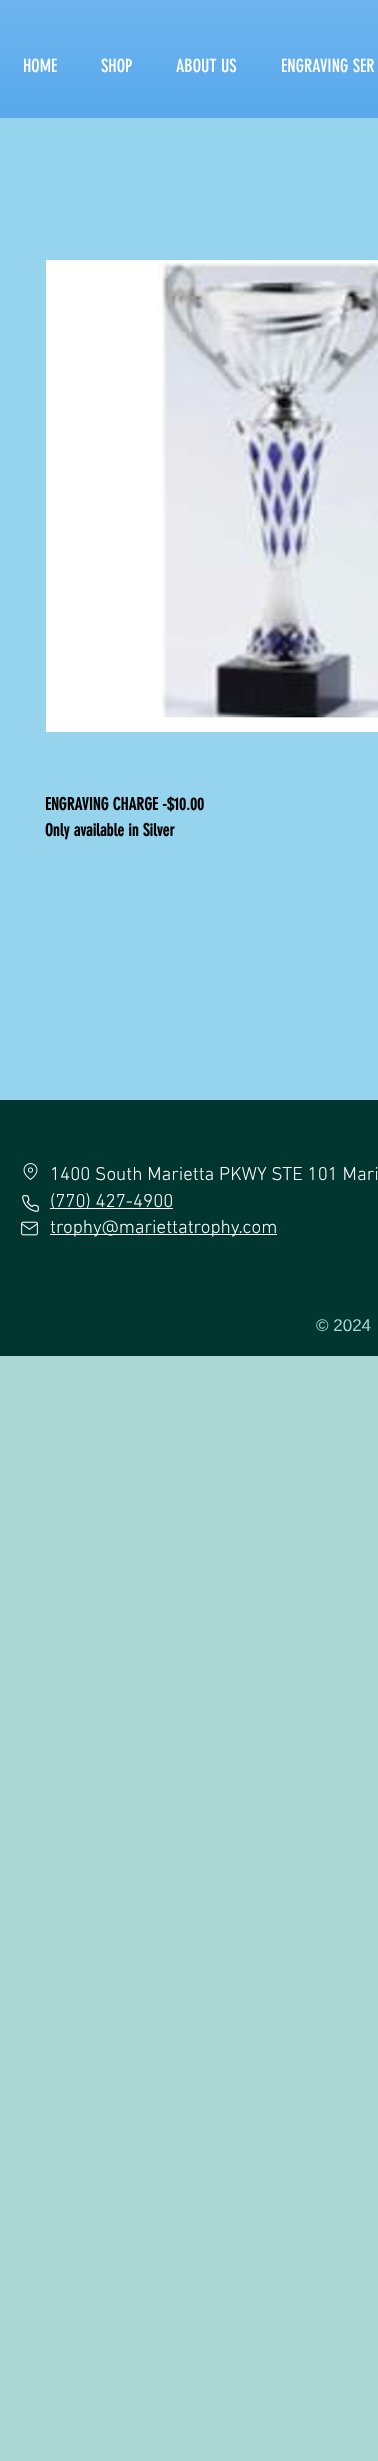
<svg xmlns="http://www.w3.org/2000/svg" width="378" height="2461">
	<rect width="100%" height="100%" fill="#ACD7D3" />
	<rect x="0" y="0" width="378" height="118" fill="#3D9BE9" />
	<image x="0" y="0" width="378" height="118" href="assets/img1.png" />
	<g font-family="'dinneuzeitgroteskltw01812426'" font-size="18" fill="#FFFFFF">
		<text x="23" y="72">HOME</text>
		<text x="101" y="72">SHOP</text>
		<text x="176" y="72">ABOUT US</text>
		<text x="281" y="72">ENGRAVING SER</text>
	</g>
	<rect x="0" y="118" width="378" height="982" fill="#96D3EC" />
	<image x="46" y="260" width="332" height="472" href="assets/img2.png" />
	<g font-family="'dinneuzeitgroteskltw01812426'" font-size="17" font-weight="700" fill="#000000">
		<text x="45" y="810">ENGRAVING CHARGE -$10.00</text>
		<text x="45" y="836">Only available in Silver</text>
	</g>
	<rect x="0" y="1100" width="378" height="256" fill="#013530" />
	<image x="23" y="1163" width="15" height="17" href="assets/img3.png" />
	<text x="50" y="1180" font-family="'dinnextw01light'" font-size="19" font-weight="300" fill="#FFFFFF">1400 South Marietta PKWY STE 101 Mari</text>
	<rect x="50" y="1208" width="123" height="1" fill="#FFFFFF" />
	<text x="50" y="1207" font-family="'dinnextw01light'" font-size="19" font-weight="300" fill="#FFFFFF">(770) 427-4900</text>
	<rect x="50" y="1234" width="227" height="1" fill="#FFFFFF" />
	<text x="50" y="1233" font-family="'dinnextw01light'" font-size="19" font-weight="300" fill="#FFFFFF">trophy@mariettatrophy.com</text>
	<image x="22" y="1195" width="17" height="17" href="assets/img4.png" />
	<image x="21" y="1221" width="17" height="15" href="assets/img5.png" />
	<text x="316" y="1331" font-family="Liberation Sans" font-size="17" fill="#ACD7D3">© 2024</text>
</svg>
